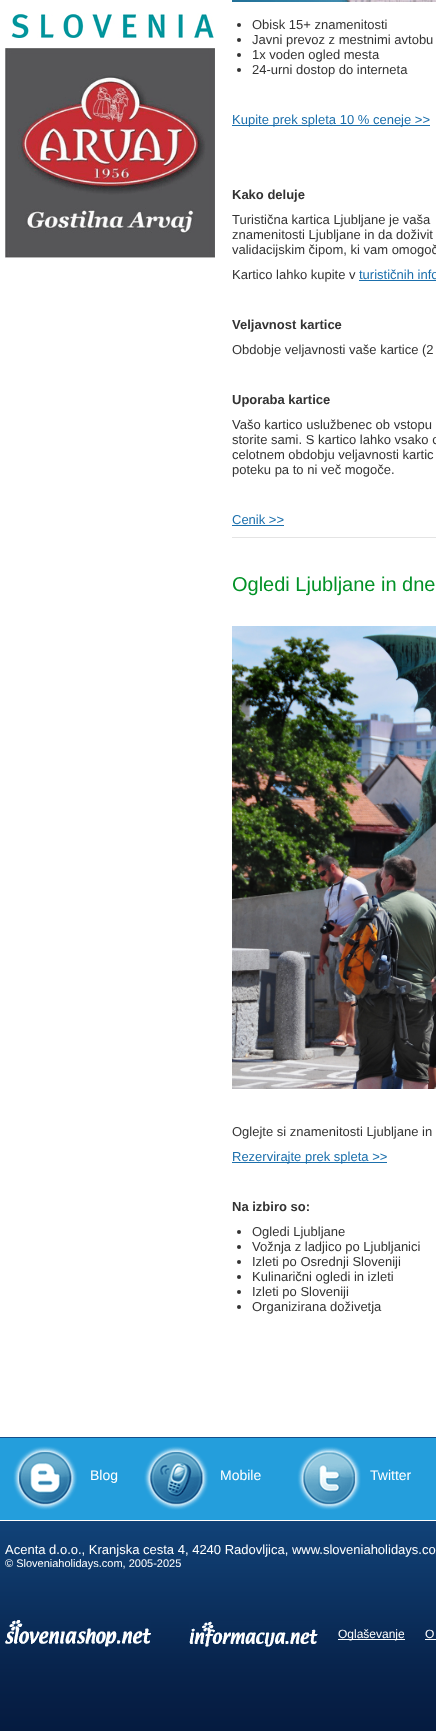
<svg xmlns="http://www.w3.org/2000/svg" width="436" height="1731">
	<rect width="100%" height="100%" fill="#FFFFFF" />
	<image x="10" y="13" width="204" height="25" href="assets/img1.png" />
	<image x="5" y="48" width="210" height="210" href="assets/img2.png" />
	<image x="232" y="0" width="204" height="2" href="assets/img3.png" />
	<circle cx="239" cy="25" r="2" fill="#333333" />
	<text x="252" y="29" font-family="Liberation Sans" font-size="13" fill="#333333">Obisk 15+ znamenitosti</text>
	<circle cx="239" cy="40" r="2" fill="#333333" />
	<text x="252" y="44" font-family="Liberation Sans" font-size="13" fill="#333333">Javni prevoz z mestnimi avtobu</text>
	<circle cx="239" cy="55" r="2" fill="#333333" />
	<text x="252" y="59" font-family="Liberation Sans" font-size="13" fill="#333333">1x voden ogled mesta</text>
	<circle cx="239" cy="70" r="2" fill="#333333" />
	<text x="252" y="74" font-family="Liberation Sans" font-size="13" fill="#333333">24-urni dostop do interneta</text>
	<rect x="232" y="125" width="198" height="1" fill="#1B6FAC" />
	<text x="232" y="124" font-family="Liberation Sans" font-size="13" fill="#1B6FAC">Kupite prek spleta 10 % ceneje &gt;&gt;</text>
	<text x="232" y="199" font-family="Liberation Sans" font-size="13" font-weight="700" fill="#333333">Kako deluje</text>
	<g font-family="Liberation Sans" font-size="13" fill="#333333">
		<text x="232" y="224">Turistična kartica Ljubljane je vaša</text>
		<text x="232" y="239">znamenitosti Ljubljane in da doživit</text>
		<text x="232" y="254">validacijskim čipom, ki vam omogoč</text>
		<text x="232" y="279">Kartico lahko kupite v</text>
	</g>
	<text x="359" y="279" font-family="Liberation Sans" font-size="13" fill="#1B6FAC">turističnih info</text>
	<rect x="359" y="280" width="77" height="1" fill="#1B6FAC" />
	<text x="232" y="329" font-family="Liberation Sans" font-size="13" font-weight="700" fill="#333333">Veljavnost kartice</text>
	<text x="232" y="354" font-family="Liberation Sans" font-size="13" fill="#333333">Obdobje veljavnosti vaše kartice (2</text>
	<text x="232" y="404" font-family="Liberation Sans" font-size="13" font-weight="700" fill="#333333">Uporaba kartice</text>
	<g font-family="Liberation Sans" font-size="13" fill="#333333">
		<text x="232" y="429">Vašo kartico uslužbenec ob vstopu</text>
		<text x="232" y="444">storite sami. S kartico lahko vsako o</text>
		<text x="232" y="459">celotnem obdobju veljavnosti kartic</text>
		<text x="232" y="474">poteku pa to ni več mogoče.</text>
	</g>
	<text x="232" y="524" font-family="Liberation Sans" font-size="13" fill="#1B6FAC">Cenik &gt;&gt;</text>
	<rect x="232" y="525" width="52" height="1" fill="#1B6FAC" />
	<rect x="232" y="537" width="204" height="1" fill="#E4E4E4" />
	<text x="232" y="591" font-family="Liberation Sans" font-size="20" fill="#029227">Ogledi Ljubljane in dne</text>
	<image x="232" y="626" width="204" height="463" href="assets/img4.png" />
	<text x="232" y="1136" font-family="Liberation Sans" font-size="13" fill="#333333">Oglejte si znamenitosti Ljubljane in</text>
	<rect x="232" y="1162" width="155" height="1" fill="#1B6FAC" />
	<text x="232" y="1161" font-family="Liberation Sans" font-size="13" fill="#1B6FAC">Rezervirajte prek spleta &gt;&gt;</text>
	<text x="232" y="1211" font-family="Liberation Sans" font-size="13" font-weight="700" fill="#333333">Na izbiro so:</text>
	<circle cx="239" cy="1232" r="2" fill="#333333" />
	<text x="252" y="1236" font-family="Liberation Sans" font-size="13" fill="#333333">Ogledi Ljubljane</text>
	<circle cx="239" cy="1247" r="2" fill="#333333" />
	<text x="252" y="1251" font-family="Liberation Sans" font-size="13" fill="#333333">Vožnja z ladjico po Ljubljanici</text>
	<circle cx="239" cy="1262" r="2" fill="#333333" />
	<text x="252" y="1266" font-family="Liberation Sans" font-size="13" fill="#333333">Izleti po Osrednji Sloveniji</text>
	<circle cx="239" cy="1277" r="2" fill="#333333" />
	<text x="252" y="1281" font-family="Liberation Sans" font-size="13" fill="#333333">Kulinarični ogledi in izleti</text>
	<circle cx="239" cy="1292" r="2" fill="#333333" />
	<text x="252" y="1296" font-family="Liberation Sans" font-size="13" fill="#333333">Izleti po Sloveniji</text>
	<circle cx="239" cy="1307" r="2" fill="#333333" />
	<text x="252" y="1311" font-family="Liberation Sans" font-size="13" fill="#333333">Organizirana doživetja</text>
	<image x="0" y="1437" width="436" height="294" href="assets/img5.png" />
	<image x="13" y="1446" width="348" height="64" href="assets/img6.png" />
	<g font-family="Liberation Sans" font-size="14" fill="#FFFFFF">
		<text x="90" y="1480">Blog</text>
		<text x="220" y="1480">Mobile</text>
		<text x="370" y="1480">Twitter</text>
	</g>
	<text x="5" y="1554" font-family="Liberation Sans" font-size="13" fill="#FFFFFF">Acenta d.o.o., Kranjska cesta 4, 4240 Radovljica, www.sloveniaholidays.co</text>
	<text x="5" y="1567" font-family="Liberation Sans" font-size="11" fill="#FFFFFF">© Sloveniaholidays.com, 2005-2025</text>
	<image x="5" y="1620" width="146" height="27" href="assets/img7.png" />
	<image x="189" y="1621" width="129" height="26" href="assets/img8.png" />
	<rect x="338" y="1639" width="67" height="1" fill="#FFFFFF" />
	<g font-family="Liberation Sans" font-size="12" fill="#FFFFFF">
		<text x="338" y="1638">Oglaševanje</text>
		<text x="425" y="1638">O</text>
	</g>
	<rect x="425" y="1639" width="11" height="1" fill="#FFFFFF" />
</svg>
